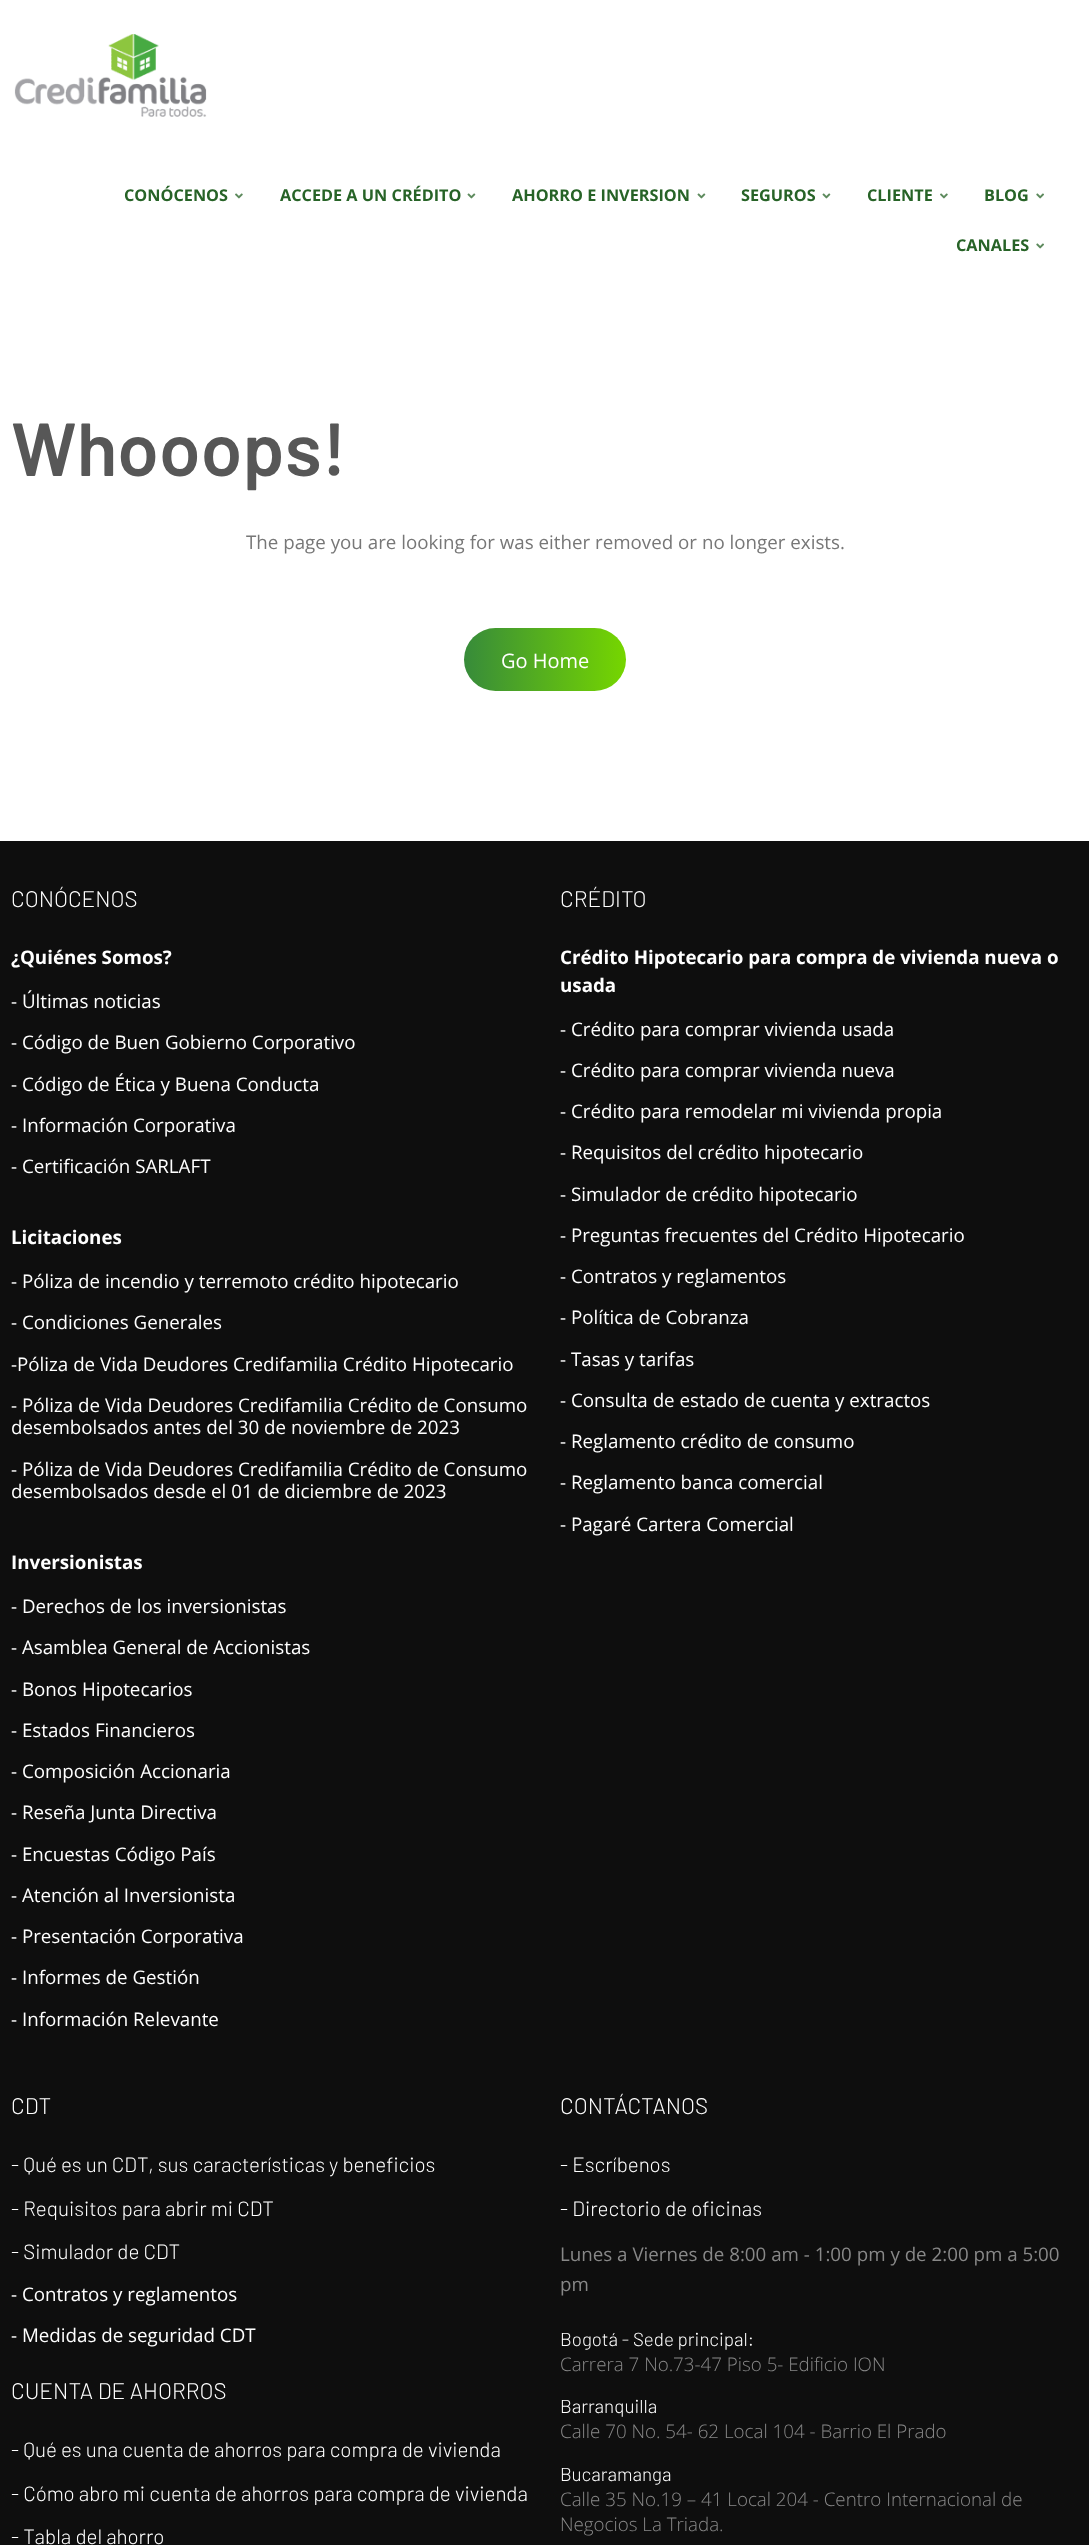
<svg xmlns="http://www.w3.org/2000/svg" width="1089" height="2545">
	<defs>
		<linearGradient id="g1" gradientUnits="userSpaceOnUse" x1="464" y1="659" x2="626" y2="659"><stop offset="0" stop-color="#378B3A" /><stop offset="1" stop-color="#76D600" /></linearGradient>
	</defs>
	<rect width="100%" height="100%" fill="#FFFFFF" />
	<image x="14" y="34" width="193" height="83" href="assets/img1.png" />
	<text x="124" y="201" font-family="Open Sans" font-size="16.25" font-weight="700" fill="#276327">CONÓCENOS</text>
	<image x="235" y="193" width="8" height="6" href="assets/img2.png" />
	<text x="280" y="201" font-family="Open Sans" font-size="16.25" font-weight="700" fill="#276327">ACCEDE A UN CRÉDITO</text>
	<image x="467" y="193" width="9" height="6" href="assets/img3.png" />
	<text x="512" y="201" font-family="Open Sans" font-size="16.25" font-weight="700" fill="#276327">AHORRO E INVERSION</text>
	<image x="697" y="193" width="9" height="6" href="assets/img3.png" />
	<text x="741" y="201" font-family="Open Sans" font-size="16.25" font-weight="700" fill="#276327">SEGUROS</text>
	<image x="822" y="193" width="9" height="6" href="assets/img3.png" />
	<text x="867" y="201" font-family="Open Sans" font-size="16.25" font-weight="700" fill="#276327">CLIENTE</text>
	<image x="940" y="193" width="8" height="6" href="assets/img2.png" />
	<text x="984" y="201" font-family="Open Sans" font-size="16.25" font-weight="700" fill="#276327">BLOG</text>
	<image x="1036" y="193" width="8" height="6" href="assets/img4.png" />
	<text x="956" y="251" font-family="Open Sans" font-size="16.25" font-weight="700" fill="#276327">CANALES</text>
	<image x="1036" y="243" width="8" height="6" href="assets/img4.png" />
	<text x="11" y="476" font-family="Barlow" font-size="75" font-weight="600" fill="#575757">Whooops!</text>
	<text x="246" y="549" font-family="Open Sans" font-size="18.75" fill="#777777">The page you are looking for was either removed or no longer exists.</text>
	<rect x="464" y="628" width="162" height="63" rx="31.5" fill="url(#g1)" />
	<text x="501" y="668" font-family="Open Sans" font-size="20" fill="#FFFFFF">Go Home</text>
	<rect x="0" y="841" width="1089" height="1704" fill="#0E0E0E" />
	<text x="11" y="907" font-family="Barlow" font-size="22.5" font-weight="300" fill="#FFFFFF">CONÓCENOS</text>
	<text x="11" y="964" font-family="Open Sans" font-size="18.75" font-weight="700" fill="#FFFFFF">¿Quiénes Somos?</text>
	<g font-family="Open Sans" font-size="18.75" fill="#FFFFFF">
		<text x="11" y="1008">- Últimas noticias</text>
		<text x="11" y="1049">- Código de Buen Gobierno Corporativo</text>
		<text x="11" y="1091">- Código de Ética y Buena Conducta</text>
		<text x="11" y="1132">- Información Corporativa</text>
		<text x="11" y="1173">- Certificación SARLAFT</text>
	</g>
	<text x="11" y="1244" font-family="Open Sans" font-size="18.75" font-weight="700" fill="#FFFFFF">Licitaciones</text>
	<g font-family="Open Sans" font-size="18.75" fill="#FFFFFF">
		<text x="11" y="1288">- Póliza de incendio y terremoto crédito hipotecario</text>
		<text x="11" y="1329">- Condiciones Generales</text>
		<text x="11" y="1371">-Póliza de Vida Deudores Credifamilia Crédito Hipotecario</text>
		<text x="11" y="1412">- Póliza de Vida Deudores Credifamilia Crédito de Consumo</text>
		<text x="11" y="1434">desembolsados antes del 30 de noviembre de 2023</text>
		<text x="11" y="1476">- Póliza de Vida Deudores Credifamilia Crédito de Consumo</text>
		<text x="11" y="1498">desembolsados desde el 01 de diciembre de 2023</text>
	</g>
	<text x="11" y="1569" font-family="Open Sans" font-size="18.75" font-weight="700" fill="#FFFFFF">Inversionistas</text>
	<g font-family="Open Sans" font-size="18.75" fill="#FFFFFF">
		<text x="11" y="1613">- Derechos de los inversionistas</text>
		<text x="11" y="1654">- Asamblea General de Accionistas</text>
		<text x="11" y="1696">- Bonos Hipotecarios</text>
		<text x="11" y="1737">- Estados Financieros</text>
		<text x="11" y="1778">- Composición Accionaria</text>
		<text x="11" y="1819">- Reseña Junta Directiva</text>
		<text x="11" y="1861">- Encuestas Código País</text>
		<text x="11" y="1902">- Atención al Inversionista</text>
		<text x="11" y="1943">- Presentación Corporativa</text>
		<text x="11" y="1984">- Informes de Gestión</text>
		<text x="11" y="2026">- Información Relevante</text>
	</g>
	<text x="560" y="907" font-family="Barlow" font-size="22.5" font-weight="300" fill="#FFFFFF">CRÉDITO</text>
	<g font-family="Open Sans" font-size="18.75" font-weight="700" fill="#FFFFFF">
		<text x="560" y="964">Crédito Hipotecario para compra de vivienda nueva o</text>
		<text x="560" y="992">usada</text>
	</g>
	<g font-family="Open Sans" font-size="18.75" fill="#FFFFFF">
		<text x="560" y="1036">- Crédito para comprar vivienda usada</text>
		<text x="560" y="1077">- Crédito para comprar vivienda nueva</text>
		<text x="560" y="1118">- Crédito para remodelar mi vivienda propia</text>
		<text x="560" y="1159">- Requisitos del crédito hipotecario</text>
		<text x="560" y="1201">- Simulador de crédito hipotecario</text>
		<text x="560" y="1242">- Preguntas frecuentes del Crédito Hipotecario</text>
		<text x="560" y="1283">- Contratos y reglamentos</text>
		<text x="560" y="1324">- Política de Cobranza</text>
		<text x="560" y="1366">- Tasas y tarifas</text>
		<text x="560" y="1407">- Consulta de estado de cuenta y extractos</text>
		<text x="560" y="1448">- Reglamento crédito de consumo</text>
		<text x="560" y="1489">- Reglamento banca comercial</text>
		<text x="560" y="1531">- Pagaré Cartera Comercial</text>
	</g>
	<text x="11" y="2114" font-family="Barlow" font-size="22.5" font-weight="300" fill="#FFFFFF">CDT</text>
	<g font-family="Barlow" font-size="20.6" font-weight="300" fill="#FFFFFF">
		<text x="11" y="2172">- Qué es un CDT, sus características y beneficios</text>
		<text x="11" y="2216">- Requisitos para abrir mi CDT</text>
		<text x="11" y="2259">- Simulador de CDT</text>
	</g>
	<g font-family="Open Sans" font-size="18.75" fill="#FFFFFF">
		<text x="11" y="2301">- Contratos y reglamentos</text>
		<text x="11" y="2342">- Medidas de seguridad CDT</text>
	</g>
	<text x="11" y="2399" font-family="Barlow" font-size="22.5" font-weight="300" fill="#FFFFFF">CUENTA DE AHORROS</text>
	<g font-family="Barlow" font-size="20.6" font-weight="300" fill="#FFFFFF">
		<text x="11" y="2457">- Qué es una cuenta de ahorros para compra de vivienda</text>
		<text x="11" y="2501">- Cómo abro mi cuenta de ahorros para compra de vivienda</text>
		<text x="11" y="2544">- Tabla del ahorro</text>
	</g>
	<text x="560" y="2114" font-family="Barlow" font-size="22.5" font-weight="300" fill="#FFFFFF">CONTÁCTANOS</text>
	<g font-family="Barlow" font-size="20.6" font-weight="300" fill="#FFFFFF">
		<text x="560" y="2172">- Escríbenos</text>
		<text x="560" y="2216">- Directorio de oficinas</text>
	</g>
	<g font-family="Open Sans" font-size="18.75" fill="#888888">
		<text x="560" y="2261">Lunes a Viernes de 8:00 am - 1:00 pm y de 2:00 pm a 5:00</text>
		<text x="560" y="2291">pm</text>
	</g>
	<text x="560" y="2346" font-family="Barlow" font-size="18.75" font-weight="300" fill="#FFFFFF">Bogotá - Sede principal:</text>
	<text x="560" y="2371" font-family="Open Sans" font-size="18.75" font-weight="300" fill="#888888">Carrera 7 No.73-47 Piso 5- Edificio ION</text>
	<text x="560" y="2413" font-family="Barlow" font-size="18.75" font-weight="300" fill="#FFFFFF">Barranquilla</text>
	<text x="560" y="2438" font-family="Open Sans" font-size="18.75" font-weight="300" fill="#888888">Calle 70 No. 54- 62 Local 104 - Barrio El Prado</text>
	<text x="560" y="2481" font-family="Barlow" font-size="18.75" font-weight="300" fill="#FFFFFF">Bucaramanga</text>
	<g font-family="Open Sans" font-size="18.75" font-weight="300" fill="#888888">
		<text x="560" y="2506">Calle 35 No.19 – 41 Local 204 - Centro Internacional de</text>
		<text x="560" y="2531">Negocios La Triada.</text>
	</g>
</svg>
